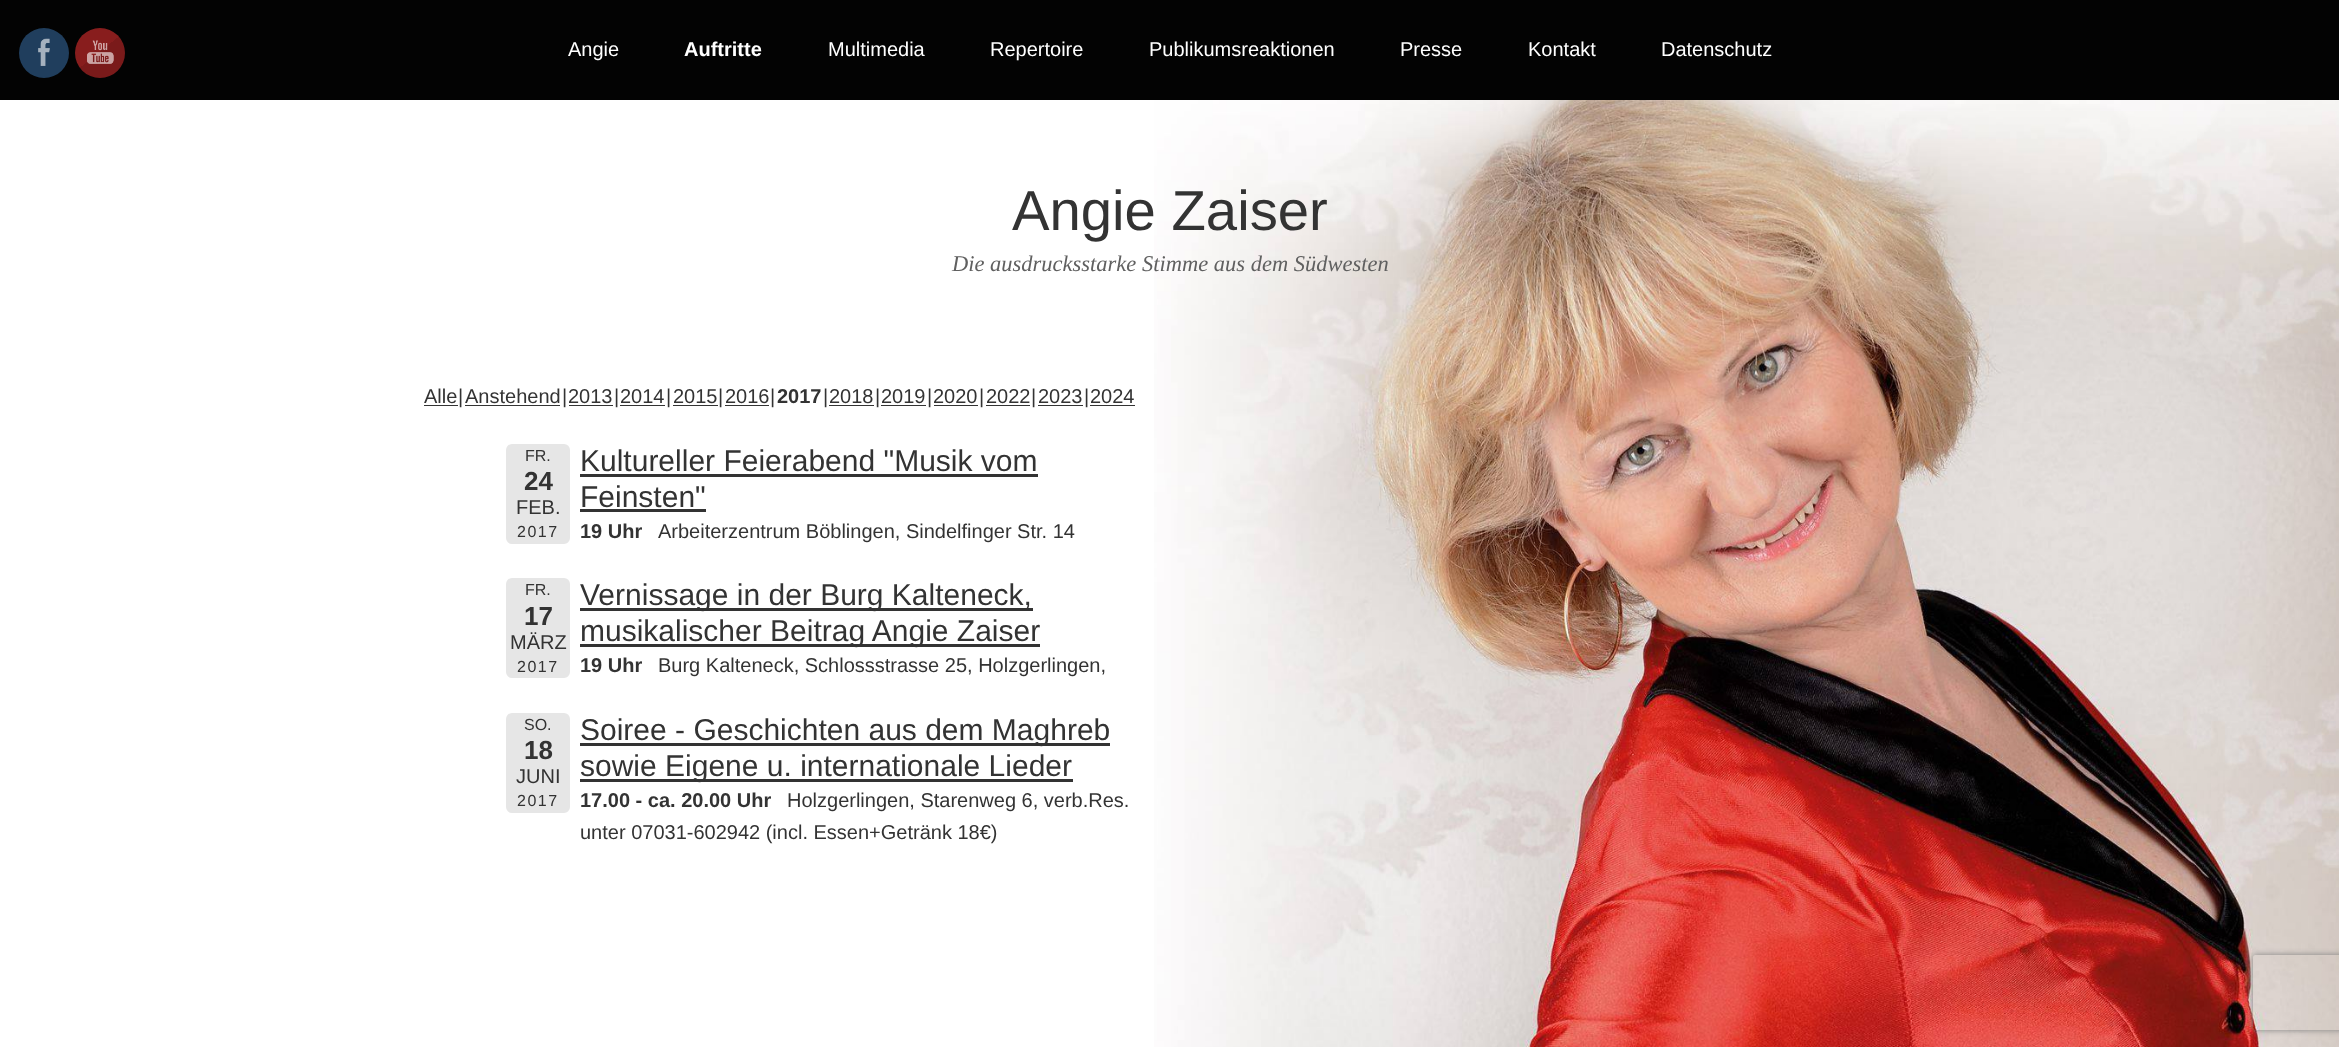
<svg xmlns="http://www.w3.org/2000/svg" width="2339" height="1047">
	<defs>
		<linearGradient id="g1" gradientUnits="userSpaceOnUse" x1="78" y1="25" x2="122" y2="80"><stop offset="0.14" stop-color="#881D1D" /><stop offset="0.49" stop-color="#881D1D" /><stop offset="0.49" stop-color="#7A1A1A" /><stop offset="0.85" stop-color="#7A1A1A" /></linearGradient>
		<clipPath id="clip1"><path d="M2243 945H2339V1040H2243ZM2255.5 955H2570.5C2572 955 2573 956 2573 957.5V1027.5C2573 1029 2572 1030 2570.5 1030H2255.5C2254 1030 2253 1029 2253 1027.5V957.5C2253 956 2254 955 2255.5 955Z" clip-rule="evenodd" /></clipPath>
	</defs>
	<rect width="100%" height="100%" fill="#FFFFFF" />
	<rect x="0" y="0" width="2339" height="100" fill="#030303" />
	<circle cx="44" cy="53" r="25" fill="#203E5D" />
	<image x="38" y="38" width="12" height="28" href="assets/img1.png" />
	<circle cx="100" cy="53" r="25" fill="url(#g1)" />
	<image x="87" y="40" width="27" height="24" href="assets/img2.png" />
	<text x="568" y="56" font-family="Liberation Sans" font-size="20" fill="#FFFFFF">Angie</text>
	<text x="684" y="56" font-family="Liberation Sans" font-size="20" font-weight="700" fill="#FFFFFF">Auftritte</text>
	<g font-family="Liberation Sans" font-size="20" fill="#FFFFFF">
		<text x="828" y="56">Multimedia</text>
		<text x="990" y="56">Repertoire</text>
		<text x="1149" y="56">Publikumsreaktionen</text>
		<text x="1400" y="56">Presse</text>
		<text x="1528" y="56">Kontakt</text>
		<text x="1661" y="56">Datenschutz</text>
	</g>
	<image x="1154" y="100" width="1185" height="947" href="assets/img3.png" />
	<text x="1012" y="230" font-family="Liberation Sans" font-size="56.25" fill="#333333">Angie Zaiser</text>
	<text x="952" y="271" font-family="Liberation Serif" font-size="22.5" font-style="italic" fill="#606060">Die ausdrucksstarke Stimme aus dem Südwesten</text>
	<text x="424" y="403" font-family="Liberation Sans" font-size="20" fill="#333333">Alle</text>
	<rect x="424" y="405" width="34" height="1" fill="#333333" />
	<g font-family="Liberation Sans" font-size="20" fill="#333333">
		<text x="458" y="403">|</text>
		<text x="465" y="403">Anstehend</text>
	</g>
	<rect x="465" y="405" width="95" height="1" fill="#333333" />
	<g font-family="Liberation Sans" font-size="20" fill="#333333">
		<text x="562" y="403">|</text>
		<text x="568" y="403">2013</text>
	</g>
	<rect x="569" y="405" width="44" height="1" fill="#333333" />
	<g font-family="Liberation Sans" font-size="20" fill="#333333">
		<text x="614" y="403">|</text>
		<text x="620" y="403">2014</text>
	</g>
	<rect x="620" y="405" width="45" height="1" fill="#333333" />
	<g font-family="Liberation Sans" font-size="20" fill="#333333">
		<text x="666" y="403">|</text>
		<text x="673" y="403">2015</text>
	</g>
	<rect x="673" y="405" width="45" height="1" fill="#333333" />
	<g font-family="Liberation Sans" font-size="20" fill="#333333">
		<text x="718" y="403">|</text>
		<text x="725" y="403">2016</text>
	</g>
	<rect x="725" y="405" width="44" height="1" fill="#333333" />
	<text x="770" y="403" font-family="Liberation Sans" font-size="20" fill="#333333">|</text>
	<text x="777" y="403" font-family="Liberation Sans" font-size="20" font-weight="700" fill="#333333">2017</text>
	<g font-family="Liberation Sans" font-size="20" fill="#333333">
		<text x="823" y="403">|</text>
		<text x="829" y="403">2018</text>
	</g>
	<rect x="829" y="405" width="45" height="1" fill="#333333" />
	<g font-family="Liberation Sans" font-size="20" fill="#333333">
		<text x="875" y="403">|</text>
		<text x="881" y="403">2019</text>
	</g>
	<rect x="881" y="405" width="45" height="1" fill="#333333" />
	<g font-family="Liberation Sans" font-size="20" fill="#333333">
		<text x="927" y="403">|</text>
		<text x="933" y="403">2020</text>
	</g>
	<rect x="934" y="405" width="44" height="1" fill="#333333" />
	<g font-family="Liberation Sans" font-size="20" fill="#333333">
		<text x="979" y="403">|</text>
		<text x="986" y="403">2022</text>
	</g>
	<rect x="986" y="405" width="44" height="1" fill="#333333" />
	<g font-family="Liberation Sans" font-size="20" fill="#333333">
		<text x="1031" y="403">|</text>
		<text x="1038" y="403">2023</text>
	</g>
	<rect x="1038" y="405" width="45" height="1" fill="#333333" />
	<g font-family="Liberation Sans" font-size="20" fill="#333333">
		<text x="1084" y="403">|</text>
		<text x="1090" y="403">2024</text>
	</g>
	<rect x="1090" y="405" width="45" height="1" fill="#333333" />
	<rect x="506" y="444" width="64" height="100" rx="6" fill="#E6E6E6" />
	<text x="525" y="461" font-family="Liberation Sans" font-size="16" fill="#333333">FR.</text>
	<text x="524" y="490" font-family="Liberation Sans" font-size="26" font-weight="700" fill="#333333">24</text>
	<text x="516" y="514" font-family="Liberation Sans" font-size="20" fill="#333333">FEB.</text>
	<text x="517" y="537" font-family="Liberation Sans" font-size="16" letter-spacing="1.5" fill="#333333">2017</text>
	<text x="580" y="471" font-family="Liberation Sans" font-size="30" fill="#333333">Kultureller Feierabend "Musik vom</text>
	<rect x="580" y="474" width="458" height="3" fill="#333333" />
	<text x="580" y="507" font-family="Liberation Sans" font-size="30" fill="#333333">Feinsten"</text>
	<rect x="580" y="509" width="126" height="3" fill="#333333" />
	<text x="580" y="538" font-family="Liberation Sans" font-size="20" font-weight="700" fill="#333333">19 Uhr</text>
	<text x="658" y="538" font-family="Liberation Sans" font-size="20" fill="#333333">Arbeiterzentrum Böblingen, Sindelfinger Str. 14</text>
	<rect x="506" y="578" width="64" height="100" rx="6" fill="#E6E6E6" />
	<text x="525" y="595" font-family="Liberation Sans" font-size="16" fill="#333333">FR.</text>
	<text x="524" y="625" font-family="Liberation Sans" font-size="26" font-weight="700" fill="#333333">17</text>
	<text x="510" y="649" font-family="Liberation Sans" font-size="20" fill="#333333">MÄRZ</text>
	<text x="517" y="672" font-family="Liberation Sans" font-size="16" letter-spacing="1.5" fill="#333333">2017</text>
	<rect x="580" y="608" width="453" height="3" fill="#333333" />
	<text x="580" y="605" font-family="Liberation Sans" font-size="30" fill="#333333">Vernissage in der Burg Kalteneck,</text>
	<rect x="580" y="644" width="460" height="3" fill="#333333" />
	<text x="580" y="641" font-family="Liberation Sans" font-size="30" fill="#333333">musikalischer Beitrag Angie Zaiser</text>
	<text x="580" y="672" font-family="Liberation Sans" font-size="20" font-weight="700" fill="#333333">19 Uhr</text>
	<text x="658" y="672" font-family="Liberation Sans" font-size="20" fill="#333333">Burg Kalteneck, Schlossstrasse 25, Holzgerlingen,</text>
	<rect x="506" y="713" width="64" height="100" rx="6" fill="#E6E6E6" />
	<text x="524" y="730" font-family="Liberation Sans" font-size="16" fill="#333333">SO.</text>
	<text x="524" y="759" font-family="Liberation Sans" font-size="26" font-weight="700" fill="#333333">18</text>
	<text x="516" y="783" font-family="Liberation Sans" font-size="20" fill="#333333">JUNI</text>
	<text x="517" y="806" font-family="Liberation Sans" font-size="16" letter-spacing="1.5" fill="#333333">2017</text>
	<rect x="580" y="743" width="530" height="3" fill="#333333" />
	<text x="580" y="740" font-family="Liberation Sans" font-size="30" fill="#333333">Soiree - Geschichten aus dem Maghreb</text>
	<rect x="580" y="779" width="493" height="3" fill="#333333" />
	<text x="580" y="776" font-family="Liberation Sans" font-size="30" fill="#333333">sowie Eigene u. internationale Lieder</text>
	<text x="580" y="807" font-family="Liberation Sans" font-size="20" font-weight="700" fill="#333333">17.00 - ca. 20.00 Uhr</text>
	<g font-family="Liberation Sans" font-size="20" fill="#333333">
		<text x="787" y="807">Holzgerlingen, Starenweg 6, verb.Res.</text>
		<text x="580" y="839">unter 07031-602942 (incl. Essen+Getränk 18€)</text>
	</g>
	<g clip-path="url(#clip1)">
		<rect x="2253" y="955" width="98" height="75" rx="2.5" fill="#808080" filter="blur(3px)" />
	</g>
</svg>
